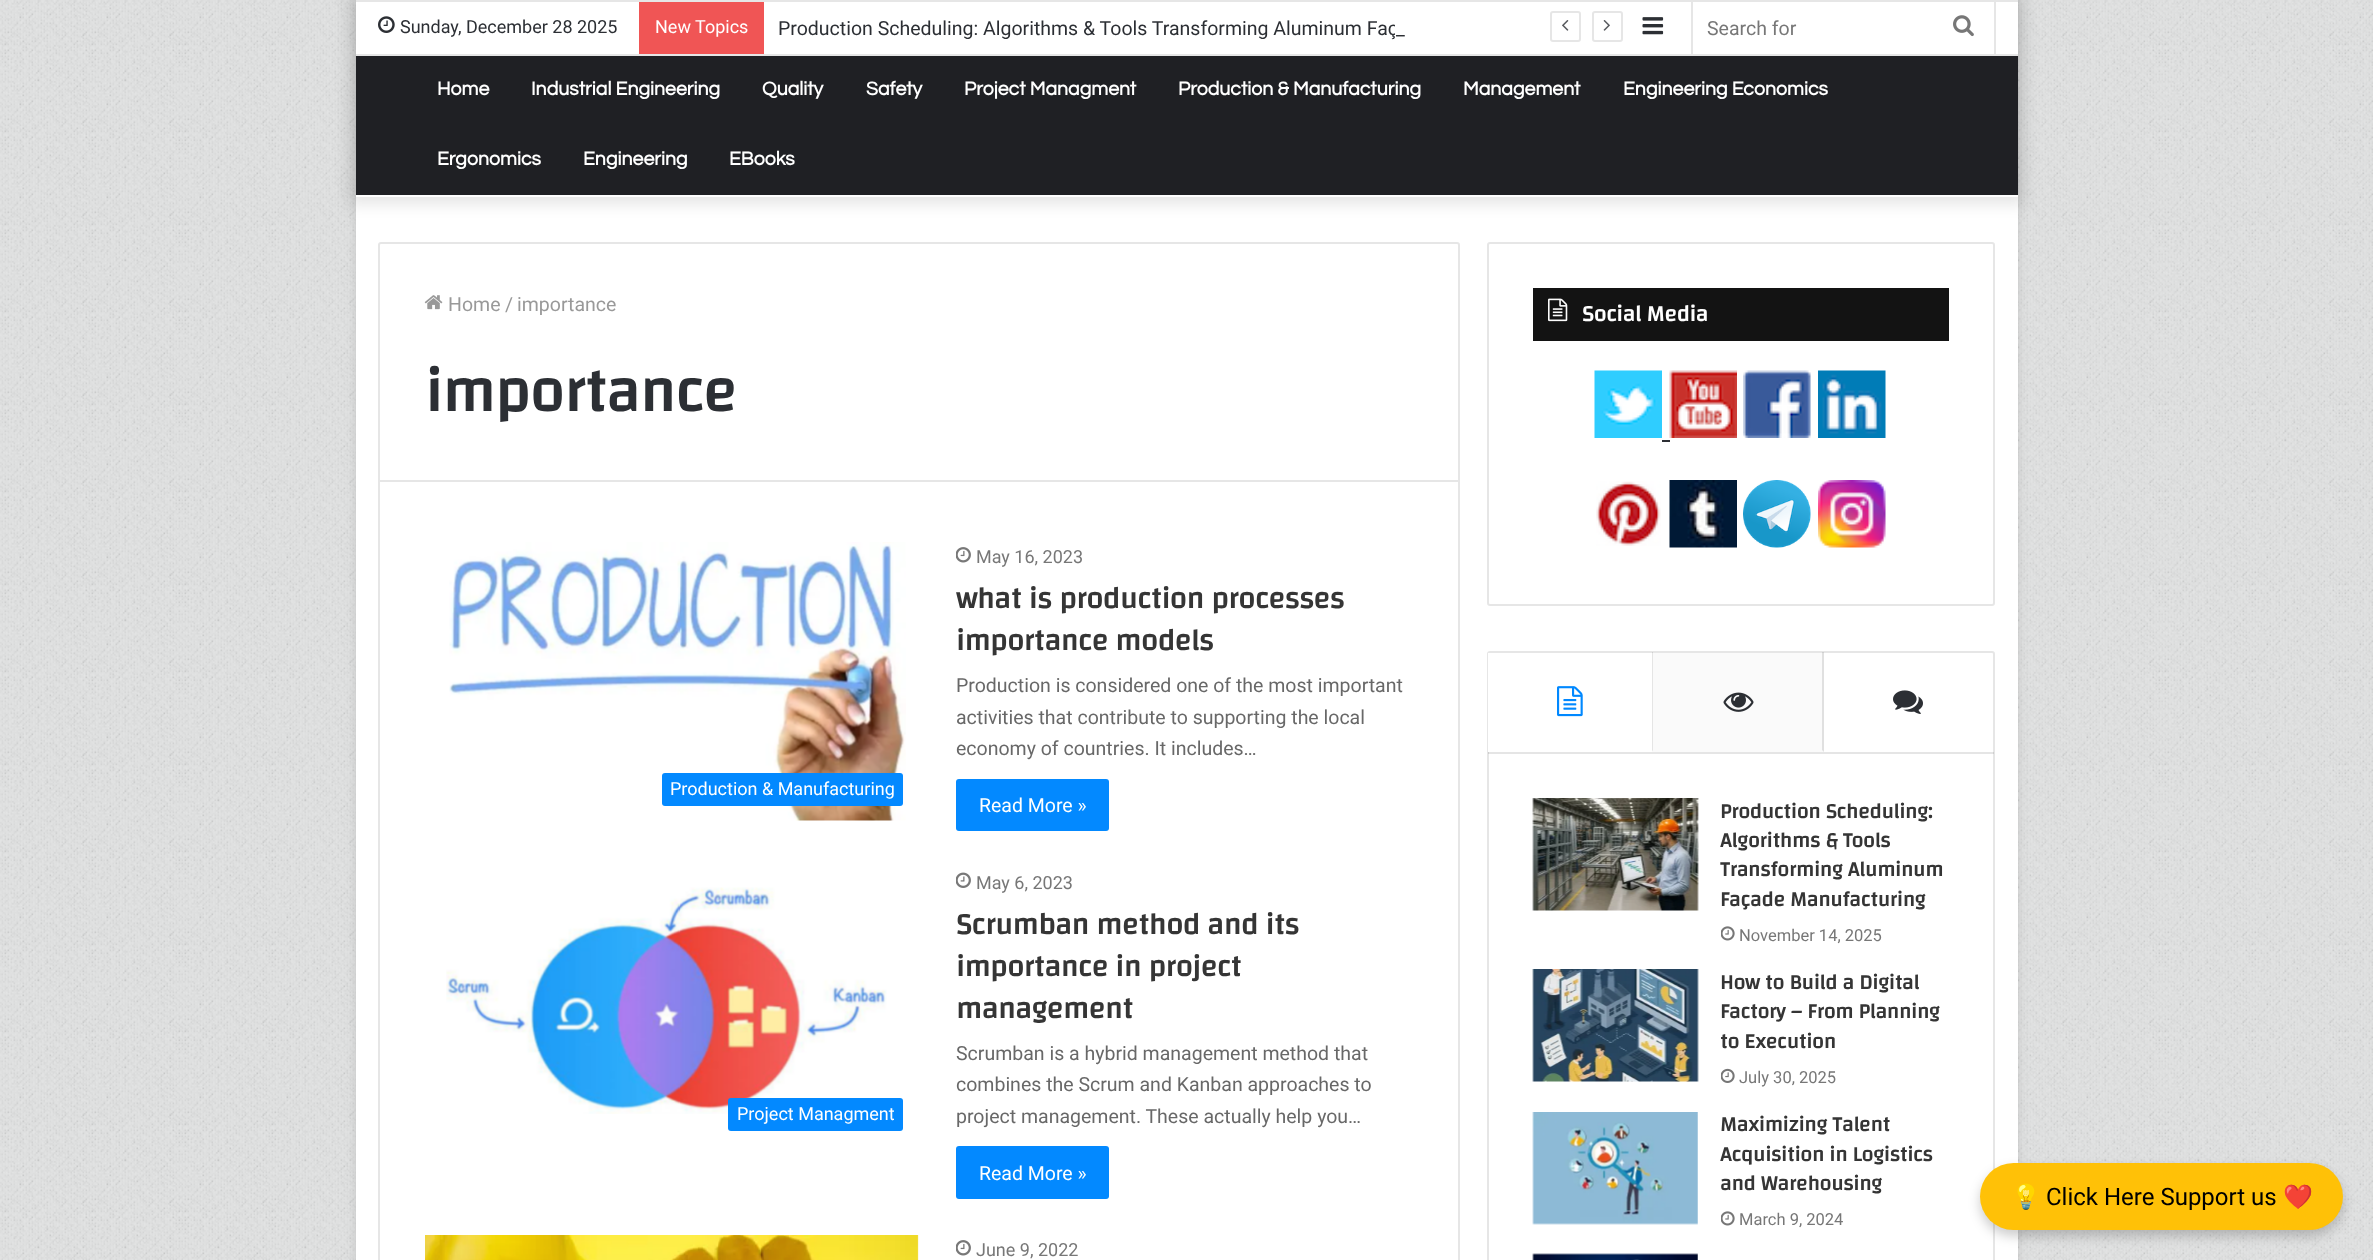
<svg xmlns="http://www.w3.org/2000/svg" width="2373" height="1260">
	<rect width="100%" height="100%" fill="#E2E3E3" />
	<image x="0" y="0" width="2373" height="1260" href="assets/img1.png" />
	<rect x="356" y="2" width="1662" height="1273" fill="#ABABAB" fill-opacity="0.5" filter="blur(5px)" />
	<rect x="356" y="197" width="1662" height="1063" fill="#FFFFFF" />
	<rect x="348" y="-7" width="1677" height="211" fill="#000000" fill-opacity="0.1" filter="blur(7.5px)" />
	<rect x="356" y="195" width="1662" height="2" fill="#FFFFFF" />
	<rect x="356" y="2" width="1662" height="52" fill="#FFFFFF" />
	<rect x="356" y="0" width="1662" height="2" fill="#E6E6E6" />
	<rect x="356" y="54" width="1662" height="2" fill="#E6E6E6" />
	<image x="378" y="16" width="17" height="17" href="assets/img2.png" />
	<text x="400" y="33" font-family="Roboto" font-size="18" fill="#2C2F34">Sunday, December 28 2025</text>
	<rect x="639" y="2" width="125" height="52" fill="#F05555" />
	<text x="655" y="33" font-family="Roboto" font-size="18" fill="#FFFFFF">New Topics</text>
	<text x="778" y="35" font-family="Roboto" font-size="19.5" fill="#2C2F34">Production Scheduling: Algorithms &amp; Tools Transforming Aluminum Faç</text>
	<rect x="1395" y="24" width="3" height="11" fill="#FFFFFF" />
	<text x="1396" y="35" font-family="Roboto" font-size="19.5" fill="#2C2F34">_</text>
	<rect x="1551" y="12" width="29" height="29" rx="2" fill="none" stroke="#E6E6E6" stroke-width="2" />
	<image x="1562" y="20" width="7" height="11" href="assets/img3.png" />
	<rect x="1593" y="12" width="29" height="29" rx="2" fill="none" stroke="#E6E6E6" stroke-width="2" />
	<image x="1603" y="20" width="7" height="11" href="assets/img4.png" />
	<image x="1642" y="17" width="22" height="18" href="assets/img5.png" />
	<rect x="1994" y="2" width="2" height="52" fill="#E6E6E6" />
	<rect x="1691" y="2" width="2" height="52" fill="#E6E6E6" />
	<text x="1707" y="35" font-family="Roboto" font-size="19.5" fill="#777777">Search for</text>
	<image x="1953" y="15" width="21" height="22" href="assets/img6.png" />
	<rect x="356" y="56" width="1662" height="139" fill="#1F2024" />
	<g font-family="Questrial" font-size="19.5" font-weight="700" fill="#FFFFFF">
		<text x="437" y="95">Home</text>
		<text x="531" y="95">Industrial Engineering</text>
		<text x="762" y="95">Quality</text>
		<text x="866" y="95">Safety</text>
		<text x="964" y="95">Project Managment</text>
		<text x="1178" y="95">Production &amp; Manufacturing</text>
		<text x="1463" y="95">Management</text>
		<text x="1623" y="95">Engineering Economics</text>
		<text x="437" y="165">Ergonomics</text>
		<text x="583" y="165">Engineering</text>
		<text x="729" y="165">EBooks</text>
	</g>
	<path d="M381 243H1457C1458 243 1459 244 1459 245V481H379V245C379 244 380 243 381 243Z" fill="none" stroke="#E6E6E6" stroke-width="2" />
	<image x="424" y="295" width="19" height="15" href="assets/img7.png" />
	<g font-family="Roboto" font-size="19.5" fill="#999999">
		<text x="448" y="311">Home</text>
		<text x="505" y="311">/</text>
		<text x="517" y="311">importance</text>
	</g>
	<text x="425" y="411" font-family="Changa" font-size="61.5" font-weight="700" fill="#2C2F34">importance</text>
	<rect x="1458" y="482" width="2" height="778" fill="#E6E6E6" />
	<rect x="378" y="482" width="2" height="778" fill="#E6E6E6" />
	<image x="449" y="542" width="457" height="279" href="assets/img8.png" />
	<rect x="662" y="773" width="241" height="33" rx="3" fill="#0389FF" />
	<text x="670" y="795" font-family="Roboto" font-size="18" fill="#FFFFFF">Production &amp; Manufacturing</text>
	<image x="956" y="547" width="15" height="16" href="assets/img9.png" />
	<text x="976" y="563" font-family="Roboto" font-size="18" fill="#777777">May 16, 2023</text>
	<g font-family="Changa" font-size="30" font-weight="700" fill="#353535">
		<text x="956" y="608">what is production processes</text>
		<text x="956" y="650">importance models</text>
	</g>
	<g font-family="Roboto" font-size="19.5" fill="#686868">
		<text x="956" y="692">Production is considered one of the most important</text>
		<text x="956" y="724">activities that contribute to supporting the local</text>
		<text x="956" y="755">economy of countries. It includes…</text>
	</g>
	<rect x="956" y="779" width="153" height="52" rx="3" fill="#0389FF" />
	<text x="979" y="812" font-family="Roboto" font-size="19.5" fill="#FFFFFF">Read More »</text>
	<image x="446" y="887" width="441" height="227" href="assets/img10.png" />
	<rect x="728" y="1098" width="175" height="33" rx="3" fill="#0389FF" />
	<text x="737" y="1120" font-family="Roboto" font-size="18" fill="#FFFFFF">Project Managment</text>
	<image x="956" y="872" width="15" height="16" href="assets/img11.png" />
	<text x="976" y="889" font-family="Roboto" font-size="18" fill="#777777">May 6, 2023</text>
	<g font-family="Changa" font-size="30" font-weight="700" fill="#353535">
		<text x="956" y="934">Scrumban method and its</text>
		<text x="956" y="976">importance in project</text>
		<text x="956" y="1018">management</text>
	</g>
	<g font-family="Roboto" font-size="19.5" fill="#686868">
		<text x="956" y="1060">Scrumban is a hybrid management method that</text>
		<text x="956" y="1091">combines the Scrum and Kanban approaches to</text>
		<text x="956" y="1123">project management. These actually help you…</text>
	</g>
	<rect x="956" y="1146" width="153" height="53" rx="3" fill="#0389FF" />
	<text x="979" y="1180" font-family="Roboto" font-size="19.5" fill="#FFFFFF">Read More »</text>
	<image x="425" y="1235" width="494" height="25" href="assets/img12.png" />
	<image x="956" y="1240" width="15" height="16" href="assets/img9.png" />
	<text x="976" y="1256" font-family="Roboto" font-size="18" fill="#777777">June 9, 2022</text>
	<rect x="1488" y="243" width="506" height="362" rx="2" fill="none" stroke="#E6E6E6" stroke-width="2" />
	<rect x="1533" y="288" width="416" height="53" fill="#131313" />
	<image x="1548" y="298" width="20" height="24" href="assets/img13.png" />
	<text x="1582" y="321" font-family="Changa" font-size="22.5" font-weight="700" fill="#FFFFFF">Social Media</text>
	<image x="1594" y="370" width="68" height="68" href="assets/img14.png" />
	<image x="1669" y="370" width="68" height="68" href="assets/img15.png" />
	<image x="1743" y="370" width="68" height="68" href="assets/img16.png" />
	<image x="1818" y="370" width="68" height="68" href="assets/img17.png" />
	<rect x="1662" y="440" width="8" height="2" fill="#2C2F34" />
	<image x="1596" y="481" width="65" height="65" href="assets/img18.png" />
	<image x="1669" y="480" width="68" height="68" href="assets/img19.png" />
	<image x="1743" y="480" width="68" height="68" href="assets/img20.png" />
	<image x="1818" y="480" width="68" height="68" href="assets/img21.png" />
	<rect x="1488" y="652" width="506" height="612" rx="2" fill="none" stroke="#E6E6E6" stroke-width="2" />
	<rect x="1488" y="752" width="506" height="2" fill="#000000" fill-opacity="0.1" />
	<rect x="1488" y="653" width="2" height="99" fill="#FFFFFF" />
	<path d="M1653 652V752L1652 750V652Z" fill="#000000" fill-opacity="0.1" />
	<image x="1557" y="686" width="26" height="31" href="assets/img22.png" />
	<rect x="1653" y="653" width="171" height="99" fill="#FAFAFA" />
	<path d="M1824 652V752L1822 750V652Z" fill="#000000" fill-opacity="0.1" />
	<image x="1723" y="692" width="31" height="20" href="assets/img23.png" />
	<image x="1893" y="690" width="30" height="24" href="assets/img24.png" />
	<image x="1532" y="798" width="167" height="113" href="assets/img25.png" />
	<g font-family="Changa" font-size="21" font-weight="700" fill="#353535">
		<text x="1720" y="818">Production Scheduling:</text>
		<text x="1720" y="847">Algorithms &amp; Tools</text>
		<text x="1720" y="876">Transforming Aluminum</text>
		<text x="1720" y="906">Façade Manufacturing</text>
	</g>
	<image x="1721" y="926" width="14" height="15" href="assets/img26.png" />
	<text x="1739" y="941" font-family="Roboto" font-size="16.5" fill="#777777">November 14, 2025</text>
	<image x="1532" y="969" width="167" height="113" href="assets/img27.png" />
	<g font-family="Changa" font-size="21" font-weight="700" fill="#353535">
		<text x="1720" y="989">How to Build a Digital</text>
		<text x="1720" y="1018">Factory – From Planning</text>
		<text x="1720" y="1048">to Execution</text>
	</g>
	<image x="1721" y="1068" width="14" height="15" href="assets/img28.png" />
	<text x="1739" y="1083" font-family="Roboto" font-size="16.5" fill="#777777">July 30, 2025</text>
	<image x="1532" y="1112" width="166" height="113" href="assets/img29.png" />
	<g font-family="Changa" font-size="21" font-weight="700" fill="#353535">
		<text x="1720" y="1131">Maximizing Talent</text>
		<text x="1720" y="1161">Acquisition in Logistics</text>
		<text x="1720" y="1190">and Warehousing</text>
	</g>
	<image x="1721" y="1211" width="14" height="15" href="assets/img26.png" />
	<text x="1739" y="1225" font-family="Roboto" font-size="16.5" fill="#777777">March 9, 2024</text>
	<image x="1532" y="1253" width="166" height="7" href="assets/img30.png" />
	<rect x="1980" y="1169" width="363" height="67" rx="33.5" fill="#000000" fill-opacity="0.2" filter="blur(6px)" />
	<rect x="1980" y="1163" width="363" height="67" rx="33.5" fill="#FFC107" />
	<text x="2011" y="1205" font-family="Noto Color Emoji" font-size="24" fill="#000000">💡</text>
	<text x="2046" y="1205" font-family="Roboto" font-size="24" fill="#000000">Click Here Support us</text>
	<text x="2283" y="1205" font-family="Noto Color Emoji" font-size="24" fill="#000000">❤️</text>
</svg>
